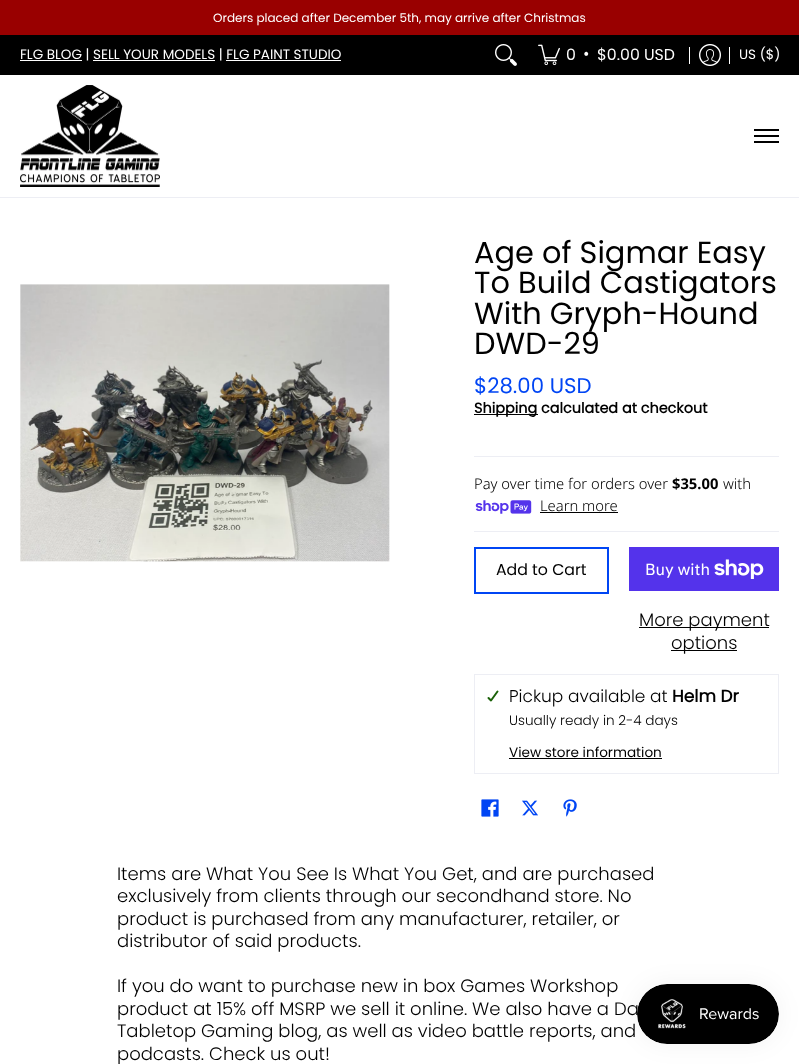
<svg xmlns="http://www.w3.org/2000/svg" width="799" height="1064">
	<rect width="100%" height="100%" fill="#FFFFFF" />
	<rect x="0" y="0" width="799" height="35" fill="#990000" />
	<text x="213" y="22" font-family="Poppins" font-size="12" fill="#FFFFFF">Orders placed after December 5th, may arrive after Christmas</text>
	<rect x="0" y="35" width="799" height="40" fill="#000000" />
	<rect x="20" y="60" width="62" height="1" fill="#FFFFFF" />
	<text x="20" y="59" font-family="Poppins" font-size="13.5" fill="#FFFFFF">FLG BLOG | SELL YOUR MODELS | FLG PAINT STUDIO</text>
	<rect x="93" y="60" width="122" height="1" fill="#FFFFFF" />
	<rect x="226" y="60" width="115" height="1" fill="#FFFFFF" />
	<image x="495" y="44" width="22" height="22" href="assets/img1.png" />
	<image x="538" y="44" width="22" height="22" href="assets/img2.png" />
	<g font-family="Poppins" font-size="15.75" fill="#FFFFFF">
		<text x="566" y="60">0</text>
		<text x="583" y="59">•</text>
		<text x="597" y="60">$0.00 USD</text>
	</g>
	<rect x="689" y="47" width="1" height="17" fill="#FFFFFF" />
	<image x="699" y="44" width="22" height="22" href="assets/img3.png" />
	<rect x="729" y="47" width="1" height="17" fill="#FFFFFF" />
	<text x="739" y="59" font-family="Poppins" font-size="13.5" fill="#FFFFFF">US ($)</text>
	<rect x="0" y="197" width="799" height="1" fill="#EDEEF4" />
	<image x="20" y="85" width="140" height="102" href="assets/img4.png" />
	<rect x="754" y="129" width="25" height="2" fill="#000000" />
	<rect x="754" y="141" width="25" height="2" fill="#000000" />
	<rect x="754" y="135" width="25" height="2" fill="#000000" />
	<image x="20" y="284" width="370" height="278" href="assets/img5.png" />
	<g font-family="Poppins" font-size="30.4" fill="#000000">
		<text x="474" y="263">Age of Sigmar Easy</text>
		<text x="474" y="293">To Build Castigators</text>
		<text x="474" y="324">With Gryph-Hound</text>
		<text x="474" y="354">DWD-29</text>
	</g>
	<rect x="474" y="456" width="305" height="1" fill="#EDEEF4" />
	<text x="474" y="393" font-family="Poppins" font-size="21.25" fill="#0045F4">$28.00 USD</text>
	<rect x="474" y="414" width="64" height="1" fill="#000000" />
	<text x="474" y="413" font-family="Poppins" font-size="14.4" font-weight="700" fill="#000000">Shipping calculated at checkout</text>
	<rect x="474" y="531" width="305" height="1" fill="#EDEEF4" />
	<text x="474" y="489" font-family="Noto Sans" font-size="14.75" font-weight="300" fill="#000000">Pay over time for orders over</text>
	<text x="672" y="489" font-family="Noto Sans" font-size="14.75" font-weight="700" fill="#000000">$35.00</text>
	<text x="723" y="489" font-family="Noto Sans" font-size="14.75" font-weight="300" fill="#000000">with</text>
	<image x="475" y="500" width="57" height="14" href="assets/img6.png" />
	<text x="540" y="511" font-family="Noto Sans" font-size="14.75" font-weight="300" fill="#000000">Learn more</text>
	<rect x="540" y="512" width="78" height="1" fill="#000000" />
	<rect x="475" y="548" width="133" height="45" fill="none" stroke="#0045F4" stroke-width="2" />
	<text x="496" y="575" font-family="Poppins" font-size="15.75" fill="#000000">Add to Cart</text>
	<rect x="629" y="547" width="150" height="44" fill="#5433EB" />
	<text x="645" y="575" font-family="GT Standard" font-size="16" fill="#FFFFFF">Buy with</text>
	<image x="714" y="559" width="50" height="20" href="assets/img7.png" />
	<rect x="639" y="627" width="130" height="1" fill="#000000" />
	<text x="639" y="626" font-family="Poppins" font-size="18" font-weight="300" fill="#000000">More payment</text>
	<rect x="671" y="650" width="66" height="1" fill="#000000" />
	<text x="671" y="649" font-family="Poppins" font-size="18" font-weight="300" fill="#000000">options</text>
	<rect x="474.5" y="674.5" width="304" height="99" fill="none" stroke="#EDEEF4" />
	<path d="M497.5 691.5L491 700.5L488.5 698" fill="none" stroke="#1B6109" stroke-width="2" stroke-linecap="round" stroke-linejoin="round" />
	<text x="509" y="702" font-family="Poppins" font-size="17" font-weight="300" fill="#000000">Pickup available at</text>
	<text x="672" y="702" font-family="Poppins" font-size="17" font-weight="700" fill="#000000">Helm Dr</text>
	<text x="509" y="725" font-family="Poppins" font-size="13.6" font-weight="300" fill="#000000">Usually ready in 2-4 days</text>
	<text x="509" y="757" font-family="Poppins" font-size="13.6" fill="#000000">View store information</text>
	<rect x="509" y="758" width="153" height="1" fill="#000000" />
	<image x="481" y="799" width="18" height="18" href="assets/img8.png" />
	<image x="522" y="800" width="16" height="16" href="assets/img9.png" />
	<image x="563" y="799" width="14" height="18" href="assets/img10.png" />
	<g font-family="Poppins" font-size="18" font-weight="300" fill="#000000">
		<text x="117" y="880">Items are What You See Is What You Get, and are purchased</text>
		<text x="117" y="902">exclusively from clients through our secondhand store. No</text>
		<text x="117" y="925">product is purchased from any manufacturer, retailer, or</text>
		<text x="117" y="947">distributor of said products.</text>
		<text x="117" y="992">If you do want to purchase new in box Games Workshop</text>
		<text x="117" y="1015">product at 15% off MSRP we sell it online. We also have a Da</text>
		<text x="117" y="1037">Tabletop Gaming blog, as well as video battle reports, and</text>
		<text x="117" y="1060">podcasts. Check us out!</text>
	</g>
	<rect x="637" y="984" width="142" height="60" rx="30" fill="#000000" fill-opacity="0.05" filter="blur(12.5px)" />
	<image x="637" y="984" width="142" height="60" href="assets/img11.png" />
</svg>
